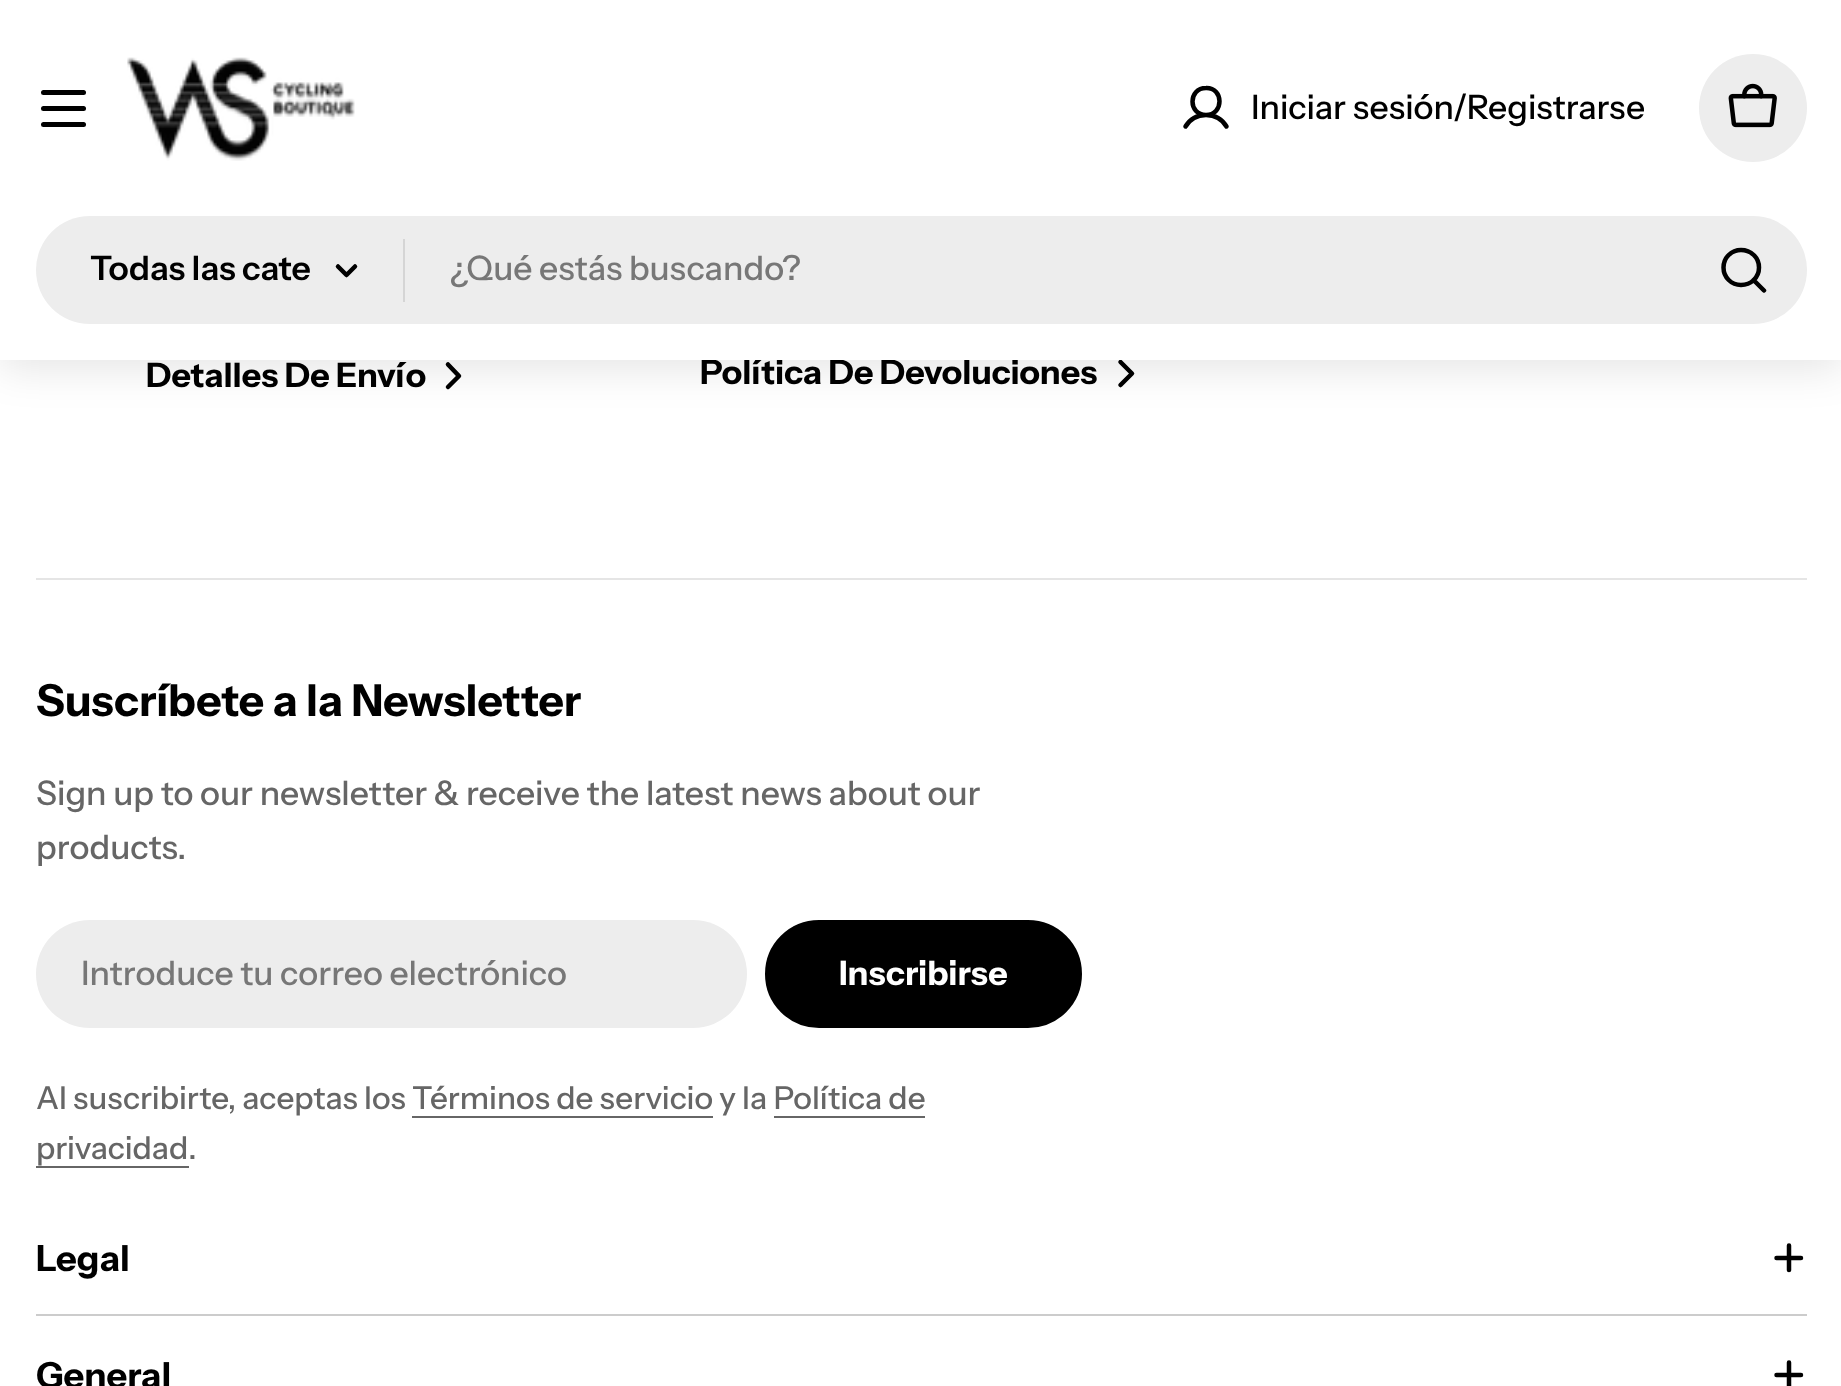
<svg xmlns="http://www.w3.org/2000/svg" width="1841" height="1386">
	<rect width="100%" height="100%" fill="#FFFFFF" />
	<path d="M448 364.5L459 376L448 387" fill="none" stroke="#000000" stroke-width="4.5" stroke-linecap="round" stroke-linejoin="round" />
	<path d="M1120.5 362L1132 373.5L1120.5 385" fill="none" stroke="#000000" stroke-width="4.5" stroke-linecap="round" stroke-linejoin="round" />
	<rect x="0" y="9" width="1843" height="360" fill="#000000" fill-opacity="0.1" filter="blur(20px)" />
	<text x="700" y="384" font-family="Instrument Sans" font-size="33.75" font-weight="700" fill="#000000">Política De Devoluciones</text>
	<rect x="0" y="0" width="1841" height="360" fill="#FFFFFF" />
	<rect x="41" y="106" width="45" height="5" rx="2.5" fill="#000000" />
	<rect x="41" y="90" width="45" height="5" rx="2.5" fill="#000000" />
	<rect x="41" y="122" width="45" height="5" rx="2.5" fill="#000000" />
	<image x="127" y="57" width="228" height="104" href="assets/img1.png" />
	<path d="M1206 115C1224 115 1224 87.5 1206 88C1188 88 1188 115 1206 115ZM1185.5 126.5C1194.5 111 1217.5 111 1226.5 126.5" fill="none" stroke="#000000" stroke-width="4.5" stroke-linecap="round" stroke-linejoin="round" />
	<text x="1251" y="119" font-family="Instrument Sans" font-size="33.75" font-weight="500" fill="#000000">Iniciar sesión/Registrarse</text>
	<circle cx="1753" cy="108" r="54" fill="#EDEDED" />
	<image x="1728" y="83" width="49" height="45" href="assets/img2.png" />
	<rect x="36" y="216" width="1771" height="108" rx="54" fill="#EDEDED" />
	<text x="90" y="280" font-family="Instrument Sans" font-size="33.75" font-weight="600" fill="#000000">Todas las cate</text>
	<path d="M355 266.5L346.5 275L338 266.5" fill="none" stroke="#000000" stroke-width="4.5" stroke-linecap="round" stroke-linejoin="round" />
	<rect x="403" y="239" width="2" height="63" fill="#D5D5D5" />
	<text x="450" y="280" font-family="Instrument Sans" font-size="33.75" font-weight="500" fill="#777777">¿Qué estás buscando?</text>
	<path d="M1741 285C1751 285 1759 277.5 1759 267.5C1759 257.5 1751 250 1741 250C1731.5 250 1723.5 257.5 1723.5 267.5C1723.5 277.5 1731.5 285 1741 285ZM1753.5 280L1764 290.5" fill="none" stroke="#000000" stroke-width="4.5" stroke-linecap="round" stroke-linejoin="round" />
	<text x="146" y="387" font-family="Instrument Sans" font-size="33.75" font-weight="700" fill="#000000">Detalles De Envío</text>
	<rect x="36" y="578" width="1771" height="2" fill="#E5E5E5" />
	<text x="36" y="716" font-family="Instrument Sans" font-size="44.1" font-weight="700" fill="#000000">Suscríbete a la Newsletter</text>
	<g font-family="Instrument Sans" font-size="33.75" font-weight="500" fill="#666666">
		<text x="36" y="805">Sign up to our newsletter &amp; receive the latest news about our</text>
		<text x="36" y="859">products.</text>
	</g>
	<rect x="36" y="920" width="711" height="108" rx="54" fill="#EDEDED" />
	<text x="81" y="985" font-family="Instrument Sans" font-size="33.75" font-weight="500" fill="#777777">Introduce tu correo electrónico</text>
	<rect x="766" y="921" width="315" height="106" rx="53" fill="#000000" stroke="#000000" stroke-width="2" />
	<text x="839" y="985" font-family="Instrument Sans" font-size="33.75" font-weight="700" fill="#FFFFFF">Inscribirse</text>
	<text x="36" y="1109" font-family="Instrument Sans" font-size="31.5" font-weight="500" fill="#666666">Al suscribirte, aceptas los Términos de servicio y la Política de</text>
	<rect x="412" y="1116" width="301" height="2" fill="#666666" />
	<text x="36" y="1159" font-family="Instrument Sans" font-size="31.5" font-weight="500" fill="#666666">privacidad.</text>
	<rect x="774" y="1116" width="151" height="2" fill="#666666" />
	<rect x="36" y="1166" width="153" height="2" fill="#666666" />
	<rect x="36" y="1314" width="1771" height="2" fill="#CCCCCC" />
	<text x="36" y="1271" font-family="Instrument Sans" font-size="36" font-weight="700" fill="#000000">Legal</text>
	<path d="M1776.5 1258H1801M1789 1245.5V1270" fill="none" stroke="#000000" stroke-width="4.5" stroke-linecap="round" stroke-linejoin="round" />
	<text x="36" y="1388" font-family="Instrument Sans" font-size="36" font-weight="700" fill="#000000">General</text>
	<path d="M1776.5 1375H1801M1789 1362.5V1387" fill="none" stroke="#000000" stroke-width="4.5" stroke-linecap="round" stroke-linejoin="round" />
</svg>
